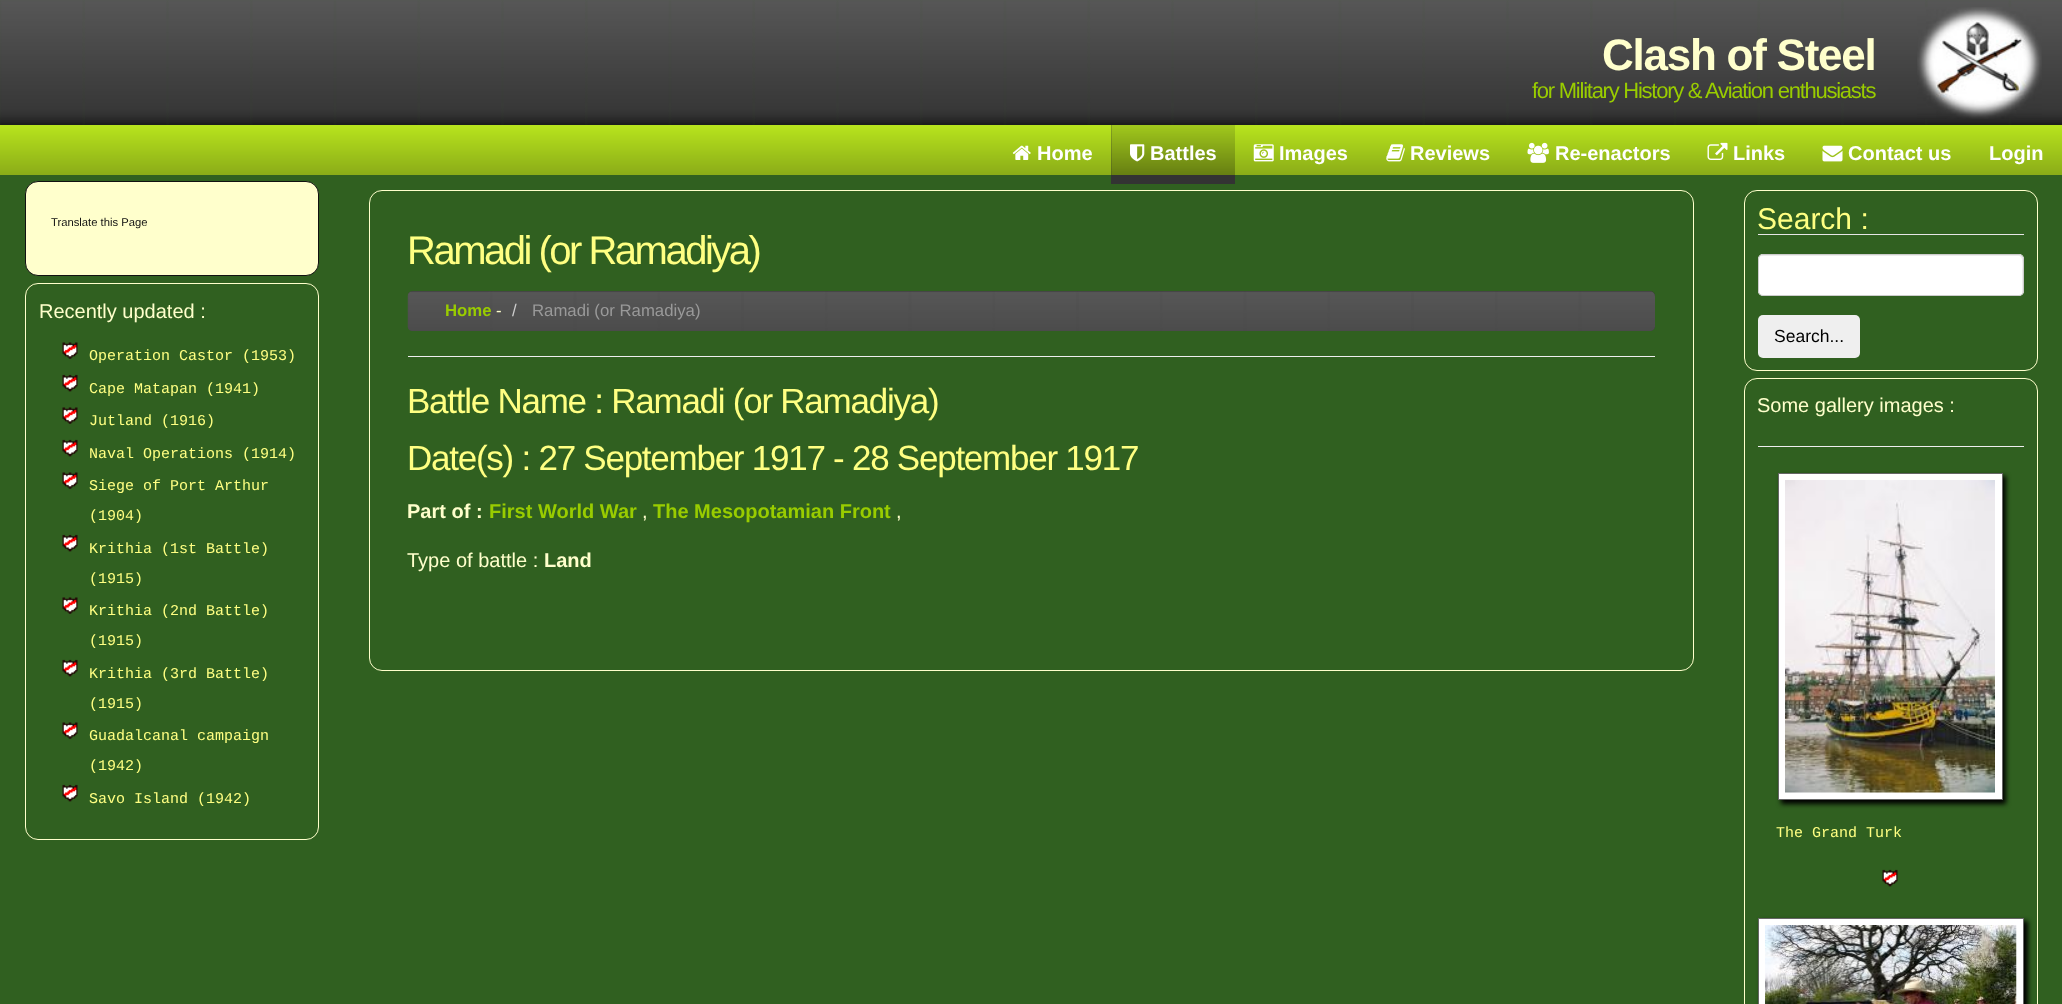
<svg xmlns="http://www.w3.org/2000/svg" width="2062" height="1004">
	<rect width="100%" height="100%" fill="#306020" />
	<image x="0" y="0" width="2062" height="125" href="assets/img1.png" />
	<text x="1602" y="70" font-family="Liberation Sans" font-size="44" font-weight="700" letter-spacing="-1.25" fill="#FFFFCC">Clash of Steel</text>
	<text x="1532" y="98" font-family="Liberation Sans" font-size="22" letter-spacing="-1.25" fill="#99CC00">for Military History &amp; Aviation enthusiasts</text>
	<image x="1917" y="7" width="125" height="112" href="assets/img2.png" />
	<image x="0" y="125" width="2062" height="50" href="assets/img3.png" />
	<image x="1012" y="145" width="19" height="15" href="assets/img4.png" />
	<text x="1037" y="160" font-family="Liberation Sans" font-size="20" font-weight="700" fill="#FFFFFF">Home</text>
	<rect x="1111" y="125" width="124" height="59" fill="#333333" />
	<image x="1111" y="125" width="124" height="50" href="assets/img5.png" />
	<image x="1130" y="144" width="15" height="18" href="assets/img6.png" />
	<text x="1150" y="160" font-family="Liberation Sans" font-size="20" font-weight="700" fill="#FFFFFF">Battles</text>
	<image x="1253" y="144" width="21" height="18" href="assets/img7.png" />
	<text x="1279" y="160" font-family="Liberation Sans" font-size="20" font-weight="700" fill="#FFFFFF">Images</text>
	<image x="1386" y="144" width="19" height="18" href="assets/img8.png" />
	<text x="1410" y="160" font-family="Liberation Sans" font-size="20" font-weight="700" fill="#FFFFFF">Reviews</text>
	<image x="1527" y="142" width="22" height="21" href="assets/img9.png" />
	<text x="1555" y="160" font-family="Liberation Sans" font-size="20" font-weight="700" fill="#FFFFFF">Re-enactors</text>
	<image x="1707" y="142" width="21" height="18" href="assets/img10.png" />
	<text x="1733" y="160" font-family="Liberation Sans" font-size="20" font-weight="700" fill="#FFFFFF">Links</text>
	<image x="1822" y="145" width="21" height="17" href="assets/img11.png" />
	<g font-family="Liberation Sans" font-size="20" font-weight="700" fill="#FFFFFF">
		<text x="1848" y="160">Contact us</text>
		<text x="1989" y="160">Login</text>
	</g>
	<rect x="25.5" y="181.5" width="293" height="94" rx="12.5" fill="#FFFFCC" stroke="#111111" />
	<text x="51" y="226" font-family="Liberation Sans" font-size="11.25" fill="#111111">Translate this Page</text>
	<rect x="25.5" y="283.5" width="293" height="556" rx="12.5" fill="none" stroke="#FFFFCC" />
	<text x="39" y="318" font-family="Liberation Sans" font-size="20" fill="#FFFFCC">Recently updated :</text>
	<image x="62" y="342" width="16" height="17" href="assets/img12.png" />
	<text x="89" y="360" font-family="Liberation Mono" font-size="15" fill="#FFFF82">Operation Castor (1953)</text>
	<image x="62" y="374" width="16" height="18" href="assets/img13.png" />
	<text x="89" y="393" font-family="Liberation Mono" font-size="15" fill="#FFFF82">Cape Matapan (1941)</text>
	<image x="62" y="407" width="16" height="17" href="assets/img12.png" />
	<text x="89" y="425" font-family="Liberation Mono" font-size="15" fill="#FFFF82">Jutland (1916)</text>
	<image x="62" y="439" width="16" height="18" href="assets/img13.png" />
	<text x="89" y="458" font-family="Liberation Mono" font-size="15" fill="#FFFF82">Naval Operations (1914)</text>
	<image x="62" y="472" width="16" height="17" href="assets/img12.png" />
	<g font-family="Liberation Mono" font-size="15" fill="#FFFF82">
		<text x="89" y="490">Siege of Port Arthur</text>
		<text x="89" y="520">(1904)</text>
	</g>
	<image x="62" y="534" width="16" height="18" href="assets/img13.png" />
	<g font-family="Liberation Mono" font-size="15" fill="#FFFF82">
		<text x="89" y="553">Krithia (1st Battle)</text>
		<text x="89" y="583">(1915)</text>
	</g>
	<image x="62" y="597" width="16" height="17" href="assets/img12.png" />
	<g font-family="Liberation Mono" font-size="15" fill="#FFFF82">
		<text x="89" y="615">Krithia (2nd Battle)</text>
		<text x="89" y="645">(1915)</text>
	</g>
	<image x="62" y="659" width="16" height="18" href="assets/img13.png" />
	<g font-family="Liberation Mono" font-size="15" fill="#FFFF82">
		<text x="89" y="678">Krithia (3rd Battle)</text>
		<text x="89" y="708">(1915)</text>
	</g>
	<image x="62" y="722" width="16" height="17" href="assets/img12.png" />
	<g font-family="Liberation Mono" font-size="15" fill="#FFFF82">
		<text x="89" y="740">Guadalcanal campaign</text>
		<text x="89" y="770">(1942)</text>
	</g>
	<image x="62" y="784" width="16" height="18" href="assets/img13.png" />
	<text x="89" y="803" font-family="Liberation Mono" font-size="15" fill="#FFFF82">Savo Island (1942)</text>
	<rect x="369.5" y="190.5" width="1324" height="480" rx="12.5" fill="none" stroke="#FFFFCC" />
	<text x="407" y="264" font-family="Liberation Sans" font-size="40" letter-spacing="-2.5" fill="#FFFF82">Ramadi (or Ramadiya)</text>
	<rect x="408" y="291" width="1247" height="40" rx="5" fill="#333333" />
	<image x="407" y="291" width="1248" height="40" href="assets/img14.png" />
	<text x="445" y="316" font-family="Liberation Sans" font-size="16.75" font-weight="700" fill="#99CC00">Home</text>
	<text x="496" y="316" font-family="Liberation Sans" font-size="16.75" fill="#FFFFCC">-</text>
	<text x="512" y="316" font-family="Liberation Sans" font-size="16.75" fill="#CCCCCC">/</text>
	<text x="532" y="316" font-family="Liberation Sans" font-size="16.75" fill="#999999">Ramadi (or Ramadiya)</text>
	<rect x="408" y="356" width="1247" height="1" fill="#EEEEEE" />
	<g font-family="Liberation Sans" font-size="35" letter-spacing="-1.25" fill="#FFFF82">
		<text x="407" y="413">Battle Name : Ramadi (or Ramadiya)</text>
		<text x="407" y="470">Date(s) : 27 September 1917 - 28 September 1917</text>
	</g>
	<text x="407" y="518" font-family="Liberation Sans" font-size="20" font-weight="700" fill="#FFFFCC">Part of :</text>
	<text x="489" y="518" font-family="Liberation Sans" font-size="20" font-weight="700" fill="#99CC00">First World War</text>
	<text x="642" y="518" font-family="Liberation Sans" font-size="20" fill="#FFFFCC">,</text>
	<text x="653" y="518" font-family="Liberation Sans" font-size="20" font-weight="700" fill="#99CC00">The Mesopotamian Front</text>
	<g font-family="Liberation Sans" font-size="20" fill="#FFFFCC">
		<text x="896" y="518">,</text>
		<text x="407" y="567">Type of battle :</text>
	</g>
	<text x="544" y="567" font-family="Liberation Sans" font-size="20" font-weight="700" fill="#FFFFCC">Land</text>
	<rect x="1744.5" y="190.5" width="293" height="180" rx="12.5" fill="none" stroke="#FFFFCC" />
	<rect x="1758" y="234" width="266" height="1" fill="#E5E5E5" />
	<text x="1757" y="229" font-family="Liberation Sans" font-size="30" fill="#FFFF82">Search :</text>
	<rect x="1758" y="254" width="266" height="42" rx="5" fill="#FFFFFF" />
	<path d="M1762 256H2019C2024 256 2022 269 2022 271V294C2023 293 2023 292 2023 291V259C2023 257 2021 255 2019 255H1763C1761 255 1759 257 1759 259V260C1759 258 1760 256 1762 256Z" fill="#ECECEC" />
	<rect x="1758.5" y="254.5" width="265" height="41" rx="4.5" fill="none" stroke="#CCCCCC" />
	<rect x="1758" y="315" width="102" height="43" rx="5" fill="#EFEFEF" />
	<text x="1774" y="342" font-family="Liberation Sans" font-size="17.5" fill="#000000">Search...</text>
	<rect x="1744.5" y="378.5" width="293" height="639" rx="12.5" fill="none" stroke="#FFFFCC" />
	<text x="1757" y="412" font-family="Liberation Sans" font-size="20" fill="#FFFFCC">Some gallery images :</text>
	<rect x="1758" y="446" width="266" height="1" fill="#EEEEEE" />
	<rect x="1781" y="476" width="225" height="328" fill="#000000" filter="blur(2.5px)" />
	<rect x="1778.5" y="473.5" width="224" height="326" fill="#FFFFFF" stroke="#666666" />
	<image x="1785" y="480" width="210" height="313" href="assets/img15.png" />
	<text x="1776" y="837" font-family="Liberation Mono" font-size="15" fill="#FFFF82">The Grand Turk</text>
	<image x="1882" y="869" width="16" height="18" href="assets/img13.png" />
	<rect x="1761" y="921" width="267" height="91" fill="#000000" filter="blur(2.5px)" />
	<rect x="1758.5" y="918.5" width="265" height="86" fill="#FFFFFF" stroke="#666666" />
	<image x="1765" y="925" width="252" height="79" href="assets/img16.png" />
</svg>
